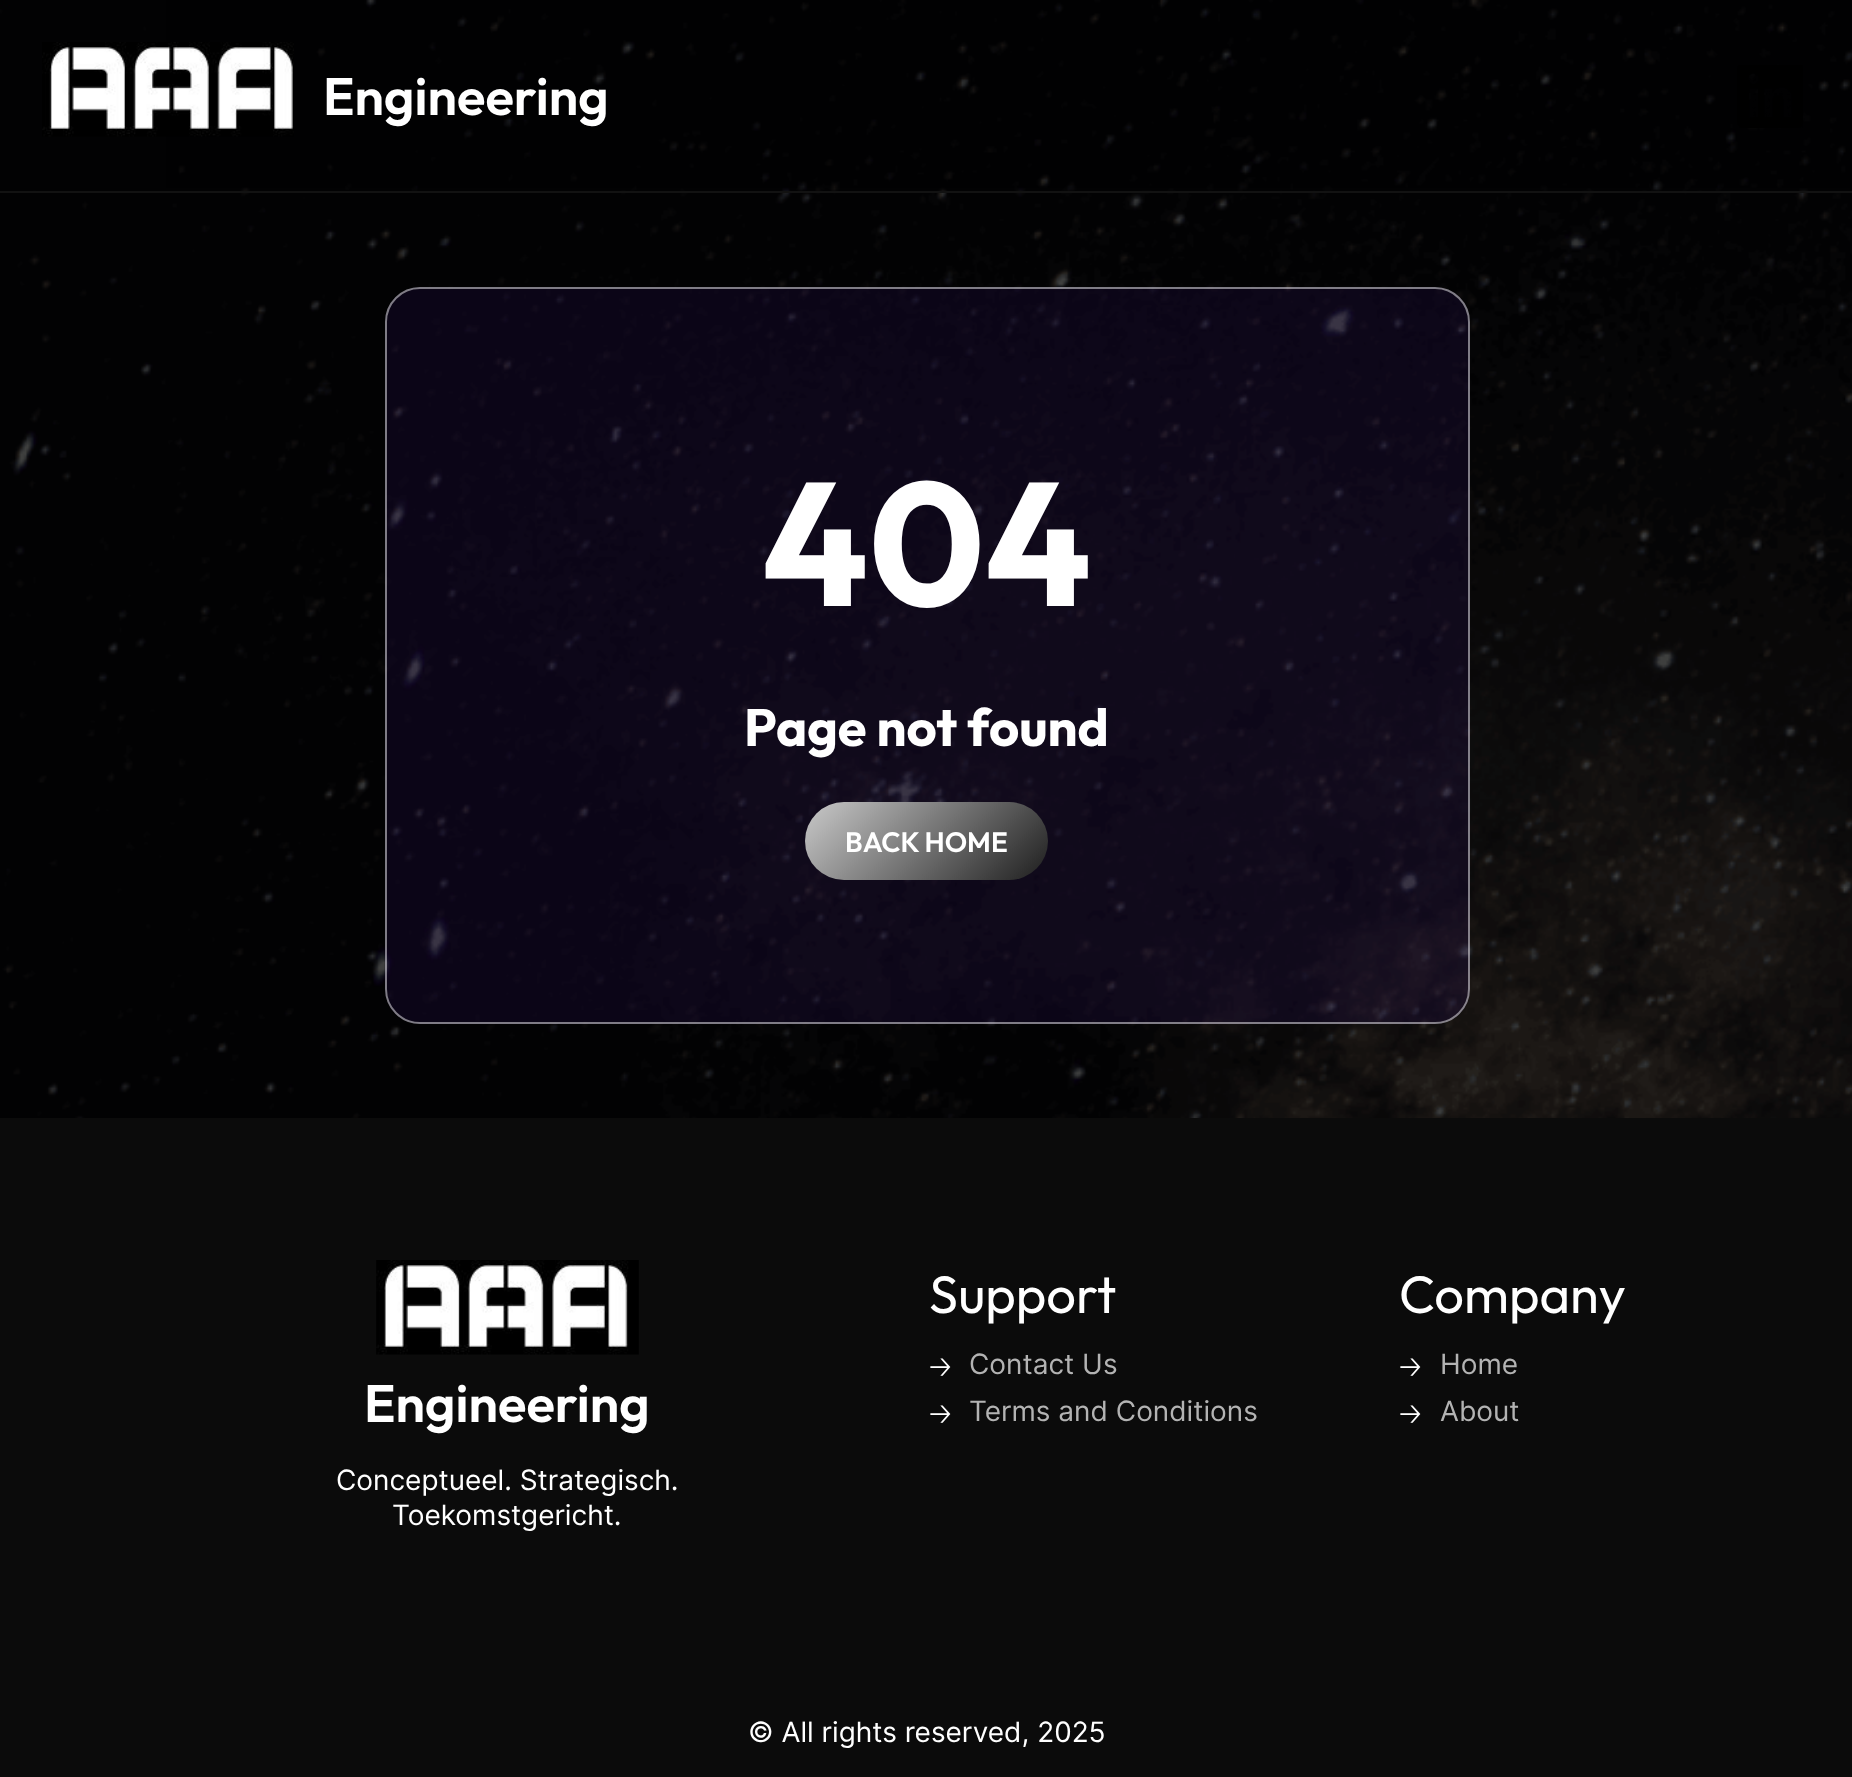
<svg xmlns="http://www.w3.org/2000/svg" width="1852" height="1777">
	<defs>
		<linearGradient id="g1" gradientUnits="userSpaceOnUse" x1="846" y1="760" x2="1007" y2="921"><stop offset="0" stop-color="#CACACA" /><stop offset="1" stop-color="#1E1E1E" /></linearGradient>
	</defs>
	<rect width="100%" height="100%" fill="#FFFFFF" />
	<image x="0" y="0" width="1852" height="1118" href="assets/img1.png" />
	<rect x="166" y="0" width="1684" height="188" fill="#000000" fill-opacity="0.09" />
	<rect x="0" y="191" width="1852" height="2" fill="#121212" />
	<image x="42" y="42" width="252" height="95" href="assets/img2.png" />
	<text x="323" y="115" font-family="Outfit" font-size="52.5" font-weight="600" fill="#FFFFFF">Engineering</text>
	<image x="1737" y="65" width="66" height="63" href="assets/img3.png" />
	<rect x="385" y="287" width="1085" height="737" rx="35" fill="#2A105C" fill-opacity="0.23" />
	<rect x="386" y="288" width="1083" height="735" rx="34" fill="none" stroke="#FFFFFF" stroke-opacity="0.48" stroke-width="2" />
	<text x="762" y="606" font-family="Outfit" font-size="175" font-weight="700" fill="#FFFFFF">404</text>
	<text x="744" y="746" font-family="Outfit" font-size="52.5" font-weight="700" fill="#FFFFFF">Page not found</text>
	<rect x="805" y="802" width="243" height="78" rx="39" fill="url(#g1)" />
	<text x="845" y="852" font-family="Outfit" font-size="28" font-weight="600" fill="#FFFFFF">BACK HOME</text>
	<rect x="0" y="1118" width="1852" height="659" fill="#0B0B0B" />
	<text x="929" y="1313" font-family="Outfit" font-size="52.5" fill="#FFFFFF">Support</text>
	<text x="929" y="1376" font-family="'Noto Sans Symbols 2'" font-size="28" fill="#FFFFFF">🡢</text>
	<text x="969" y="1374" font-family="Inter" font-size="28" fill="#B3B3B3">Contact Us</text>
	<text x="929" y="1423" font-family="'Noto Sans Symbols 2'" font-size="28" fill="#FFFFFF">🡢</text>
	<text x="969" y="1421" font-family="Inter" font-size="28" fill="#B3B3B3">Terms and Conditions</text>
	<text x="1399" y="1313" font-family="Outfit" font-size="52.5" fill="#FFFFFF">Company</text>
	<text x="1399" y="1376" font-family="'Noto Sans Symbols 2'" font-size="28" fill="#FFFFFF">🡢</text>
	<text x="1440" y="1374" font-family="Inter" font-size="28" fill="#B3B3B3">Home</text>
	<text x="1399" y="1423" font-family="'Noto Sans Symbols 2'" font-size="28" fill="#FFFFFF">🡢</text>
	<text x="1440" y="1421" font-family="Inter" font-size="28" fill="#B3B3B3">About</text>
	<image x="376" y="1260" width="263" height="95" href="assets/img4.png" />
	<text x="364" y="1422" font-family="Outfit" font-size="52.5" font-weight="600" fill="#FFFFFF">Engineering</text>
	<g font-family="Inter" font-size="28" fill="#FFFFFF">
		<text x="336" y="1490">Conceptueel. Strategisch.</text>
		<text x="392" y="1525">Toekomstgericht.</text>
		<text x="748" y="1742">© All rights reserved, 2025</text>
	</g>
</svg>
